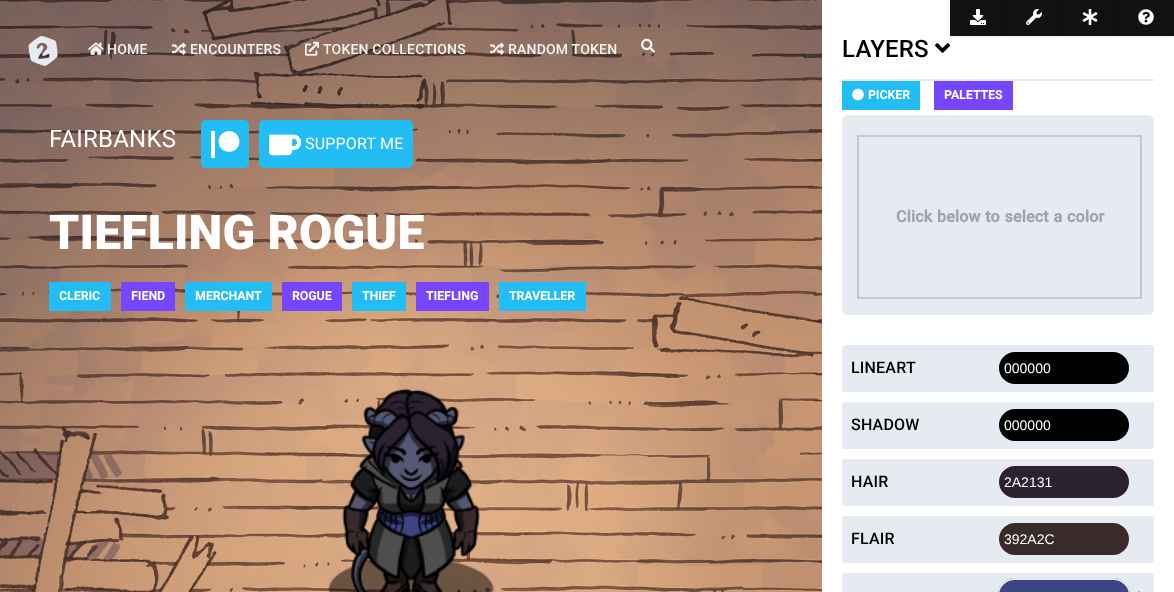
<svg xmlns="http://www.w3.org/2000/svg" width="1174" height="592">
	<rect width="100%" height="100%" fill="#FFFFFF" />
	<image x="0" y="0" width="822" height="592" href="assets/img14.png" />
	<image x="28" y="36" width="30" height="30" href="assets/img1.png" />
	<image x="88" y="42" width="16" height="13" href="assets/img2.png" />
	<text x="107" y="54" font-family="Roboto" font-size="14" font-weight="500" letter-spacing="0.2" fill="#F2F2F2">HOME</text>
	<image x="172" y="42" width="14" height="13" href="assets/img3.png" />
	<text x="190" y="54" font-family="Roboto" font-size="14" font-weight="500" letter-spacing="0.2" fill="#F2F2F2">ENCOUNTERS</text>
	<image x="305" y="41" width="14" height="15" href="assets/img4.png" />
	<text x="323" y="54" font-family="Roboto" font-size="14" font-weight="500" letter-spacing="0.2" fill="#F2F2F2">TOKEN COLLECTIONS</text>
	<image x="490" y="42" width="14" height="13" href="assets/img5.png" />
	<text x="508" y="54" font-family="Roboto" font-size="14" font-weight="500" letter-spacing="0.2" fill="#F2F2F2">RANDOM TOKEN</text>
	<image x="641" y="38" width="14" height="15" href="assets/img6.png" />
	<image x="935" y="43" width="15" height="10" href="assets/img11.png" />
	<rect x="950" y="0" width="56" height="36" fill="#000000" fill-opacity="0.1" filter="blur(2.5px)" />
	<rect x="950" y="0" width="56" height="36" fill="#111111" />
	<image x="970" y="9" width="16" height="16" href="assets/img7.png" />
	<rect x="1006" y="0" width="56" height="36" fill="#000000" fill-opacity="0.1" filter="blur(2.5px)" />
	<rect x="1006" y="0" width="56" height="36" fill="#111111" />
	<image x="1026" y="9" width="16" height="16" href="assets/img8.png" />
	<rect x="1062" y="0" width="56" height="36" fill="#000000" fill-opacity="0.1" filter="blur(2.5px)" />
	<rect x="1062" y="0" width="56" height="36" fill="#111111" />
	<image x="1082" y="9" width="16" height="16" href="assets/img9.png" />
	<rect x="1118" y="0" width="56" height="36" fill="#000000" fill-opacity="0.1" filter="blur(2.5px)" />
	<rect x="1118" y="0" width="56" height="36" fill="#111111" />
	<image x="1138" y="9" width="16" height="16" href="assets/img10.png" />
	<rect x="842" y="79" width="312" height="2" fill="#E6EBF2" />
	<text x="842" y="57" font-family="Roboto" font-size="24" font-weight="500" letter-spacing="0.2" fill="#000000">LAYERS</text>
	<rect x="842" y="81" width="78" height="29" fill="#21BDF4" />
	<image x="852" y="88" width="12" height="13" href="assets/img12.png" />
	<text x="868" y="99" font-family="Roboto" font-size="12" font-weight="700" letter-spacing="0.2" fill="#FFFFFF">PICKER</text>
	<rect x="934" y="81" width="79" height="29" fill="#7646FF" />
	<text x="944" y="99" font-family="Roboto" font-size="12" font-weight="700" letter-spacing="0.2" fill="#FFFFFF">PALETTES</text>
	<rect x="842" y="115" width="312" height="200" rx="6" fill="#E6EBF2" />
	<rect x="858" y="136" width="283" height="162" fill="none" stroke="#C5CAD1" stroke-width="2" />
	<text x="896" y="222" word-spacing="0.5" font-family="Roboto" font-size="16" font-weight="700" letter-spacing="0.2" fill="#9EA4AD">Click below to select a color</text>
	<rect x="842" y="345" width="312" height="47" rx="3" fill="#E6EBF2" />
	<rect x="1152" y="391" width="1" height="1" fill="#E6EBF2" />
	<text x="851" y="373" font-family="Roboto" font-size="16" font-weight="500" letter-spacing="0.2" fill="#000000">LINEART</text>
	<rect x="998" y="351" width="132" height="34" rx="17" fill="#000000" stroke="#E6EBF2" stroke-width="2" />
	<text x="1004" y="373" font-family="Liberation Sans" font-size="14" fill="#FFFFFF">000000</text>
	<rect x="842" y="402" width="312" height="47" rx="3" fill="#E6EBF2" />
	<rect x="1152" y="448" width="1" height="1" fill="#E6EBF2" />
	<text x="851" y="430" font-family="Roboto" font-size="16" font-weight="500" letter-spacing="0.2" fill="#000000">SHADOW</text>
	<rect x="998" y="408" width="132" height="34" rx="17" fill="#000000" stroke="#E6EBF2" stroke-width="2" />
	<text x="1004" y="430" font-family="Liberation Sans" font-size="14" fill="#FFFFFF">000000</text>
	<rect x="842" y="459" width="312" height="47" rx="3" fill="#E6EBF2" />
	<rect x="1152" y="505" width="1" height="1" fill="#E6EBF2" />
	<text x="851" y="487" font-family="Roboto" font-size="16" font-weight="500" letter-spacing="0.2" fill="#000000">HAIR</text>
	<rect x="998" y="465" width="132" height="34" rx="17" fill="#2A2131" stroke="#E6EBF2" stroke-width="2" />
	<text x="1004" y="487" font-family="Liberation Sans" font-size="14" fill="#FFFFFF">2A2131</text>
	<rect x="842" y="516" width="312" height="47" rx="3" fill="#E6EBF2" />
	<rect x="1152" y="562" width="1" height="1" fill="#E6EBF2" />
	<text x="851" y="544" font-family="Roboto" font-size="16" font-weight="500" letter-spacing="0.2" fill="#000000">FLAIR</text>
	<rect x="998" y="522" width="132" height="34" rx="17" fill="#392A2C" stroke="#E6EBF2" stroke-width="2" />
	<text x="1004" y="544" font-family="Liberation Sans" font-size="14" fill="#FFFFFF">392A2C</text>
	<path d="M845 573H1151C1152.5 573 1154 574.5 1154 576V592H842V576C842 574.5 843.5 573 845 573Z" fill="#E6EBF2" />
	<path d="M1015 578H1113C1123 578 1131 586 1131 596V592H997V596C997 586 1005 578 1015 578Z" fill="#3E4584" />
	<rect x="998" y="579" width="132" height="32" rx="17" fill="none" stroke="#E6EBF2" stroke-width="2" />
	<image x="1137" y="591" width="4" height="1" href="assets/img13.png" />
	<text x="49" y="147" font-family="Roboto" font-size="24" letter-spacing="0.2" fill="#FFFFFF">FAIRBANKS</text>
	<rect x="201" y="120" width="48" height="48" rx="5" fill="#21BDF4" />
	<rect x="211" y="131" width="4" height="27" fill="#FFFFFF" />
	<circle cx="229" cy="141.5" r="10.5" fill="#FFFFFF" />
	<rect x="259" y="120" width="154" height="48" rx="5" fill="#21BDF4" />
	<image x="269" y="134" width="32" height="22" href="assets/img15.png" />
	<text x="305" y="149" font-family="Roboto" font-size="16" letter-spacing="0.2" fill="#FFFFFF">SUPPORT ME</text>
	<text x="49" y="249" font-family="Roboto" font-size="48" font-weight="900" letter-spacing="0.2" fill="#FFFFFF">TIEFLING ROGUE</text>
	<rect x="49" y="282" width="62" height="29" fill="#21BDF4" />
	<text x="59" y="300" font-family="Roboto" font-size="12" font-weight="700" letter-spacing="0.2" fill="#FFFFFF">CLERIC</text>
	<rect x="121" y="282" width="54" height="29" fill="#7646FF" />
	<text x="131" y="300" font-family="Roboto" font-size="12" font-weight="700" letter-spacing="0.2" fill="#FFFFFF">FIEND</text>
	<rect x="185" y="282" width="87" height="29" fill="#21BDF4" />
	<text x="195" y="300" font-family="Roboto" font-size="12" font-weight="700" letter-spacing="0.2" fill="#FFFFFF">MERCHANT</text>
	<rect x="282" y="282" width="60" height="29" fill="#7646FF" />
	<text x="292" y="300" font-family="Roboto" font-size="12" font-weight="700" letter-spacing="0.2" fill="#FFFFFF">ROGUE</text>
	<rect x="352" y="282" width="54" height="29" fill="#21BDF4" />
	<text x="362" y="300" font-family="Roboto" font-size="12" font-weight="700" letter-spacing="0.2" fill="#FFFFFF">THIEF</text>
	<rect x="416" y="282" width="73" height="29" fill="#7646FF" />
	<text x="426" y="300" font-family="Roboto" font-size="12" font-weight="700" letter-spacing="0.2" fill="#FFFFFF">TIEFLING</text>
	<rect x="499" y="282" width="87" height="29" fill="#21BDF4" />
	<text x="509" y="300" font-family="Roboto" font-size="12" font-weight="700" letter-spacing="0.2" fill="#FFFFFF">TRAVELLER</text>
	<image x="328" y="388" width="166" height="204" href="assets/img16.png" />
</svg>
